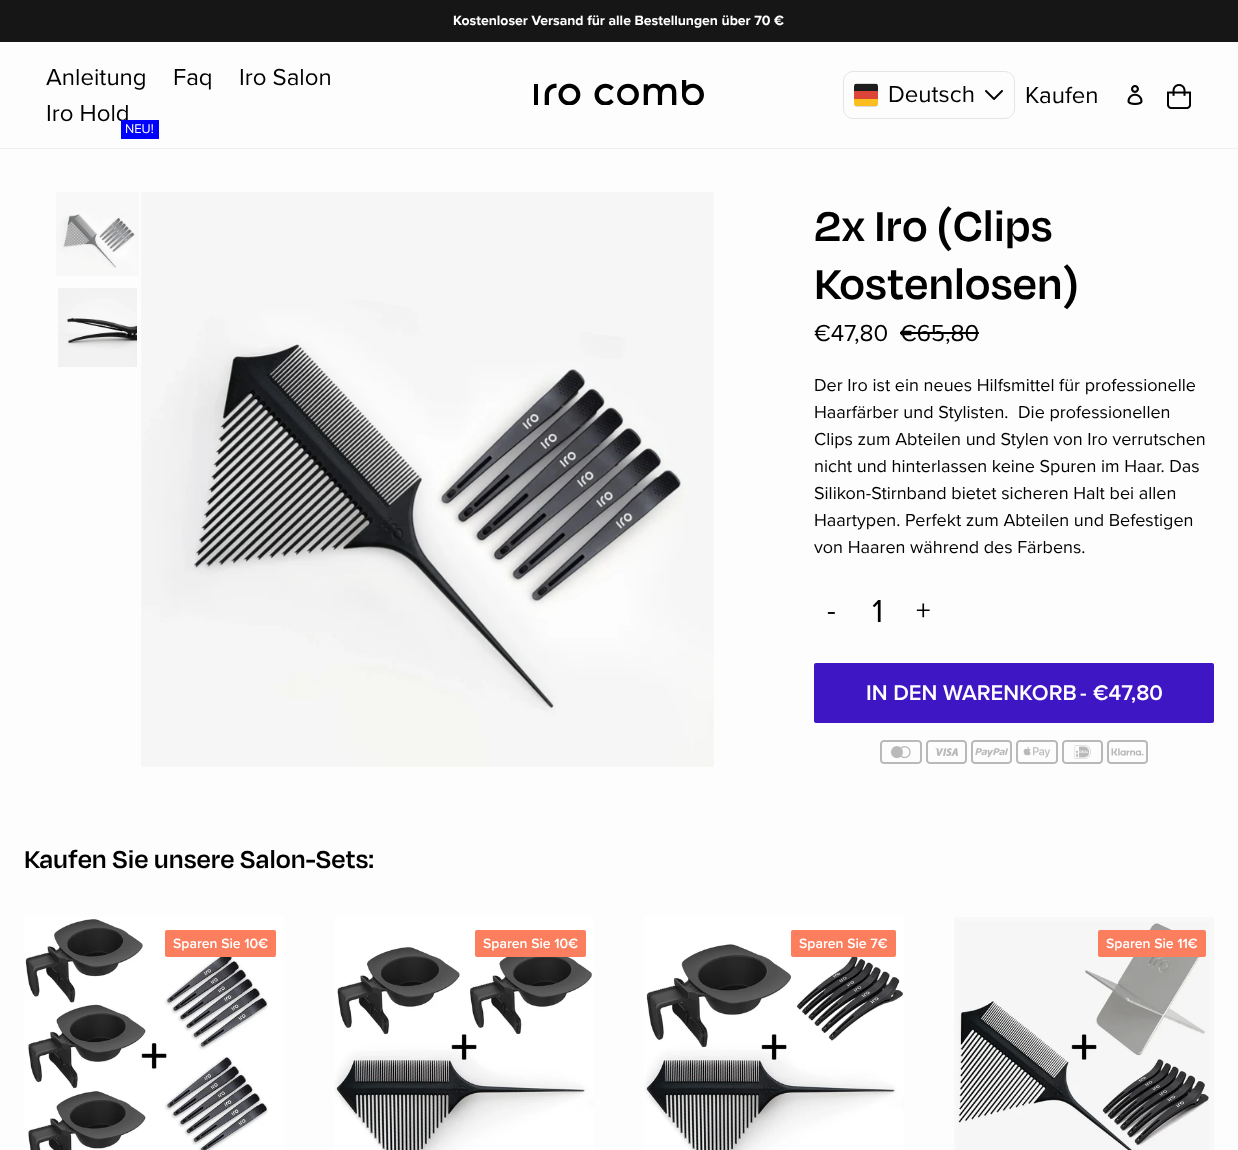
<svg xmlns="http://www.w3.org/2000/svg" width="1238" height="1150">
	<defs>
		<clipPath id="clip1"><rect x="854" y="83" width="24" height="24" rx="4" /></clipPath>
	</defs>
	<rect width="100%" height="100%" fill="#FDFDFD" />
	<rect x="0" y="0" width="1238" height="42" fill="#161616" />
	<text x="453" y="25" font-family="Proxima Nova" font-size="14" font-weight="700" fill="#FFFFFF">Kostenloser Versand für alle Bestellungen über 70 €</text>
	<rect x="0" y="148" width="1238" height="1" fill="#EFEFEF" />
	<g font-family="Proxima Nova" font-size="24" fill="#000000">
		<text x="46" y="85">Anleitung</text>
		<text x="173" y="85">Faq</text>
		<text x="239" y="85">Iro Salon</text>
		<text x="46" y="121">Iro Hold</text>
	</g>
	<rect x="121" y="120" width="38" height="19" fill="#0000FF" />
	<text x="125" y="133" font-family="Proxima Nova" font-size="13" fill="#FFFFFF">NEU!</text>
	<image x="534" y="80" width="170" height="25" href="assets/img1.png" />
	<rect x="843.5" y="71.5" width="171" height="47" rx="9.5" fill="none" stroke="#E5E5E5" />
	<rect x="854" y="83" width="24" height="24" rx="4" fill="#D8D8D8" />
	<g clip-path="url(#clip1)">
		<rect x="854" y="84" width="24" height="7" fill="#1E1D1D" />
	</g>
	<rect x="854" y="91" width="24" height="8" fill="#DC4437" />
	<g clip-path="url(#clip1)">
		<rect x="854" y="99" width="24" height="7" fill="#FCBE1F" />
	</g>
	<text x="888" y="102" font-family="Proxima Nova" font-size="24" fill="#000000">Deutsch</text>
	<image x="985" y="90" width="18" height="10" href="assets/img2.png" />
	<text x="1025" y="103" font-family="Proxima Nova" font-size="24" fill="#000000">Kaufen</text>
	<image x="1127" y="85" width="16" height="20" href="assets/img3.png" />
	<image x="1167" y="84" width="24" height="25" href="assets/img4.png" />
	<image x="56" y="192" width="83" height="84" href="assets/img5.png" />
	<image x="58" y="288" width="79" height="79" href="assets/img6.png" />
	<image x="141" y="192" width="573" height="575" href="assets/img7.png" />
	<g font-family="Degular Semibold" font-size="48" font-weight="600" fill="#000000">
		<text x="814" y="241">2x Iro (Clips</text>
		<text x="814" y="299">Kostenlosen)</text>
	</g>
	<g font-family="Proxima Nova" font-size="24" fill="#000000">
		<text x="814" y="341">€47,80</text>
		<text x="900" y="341">€65,80</text>
	</g>
	<rect x="900" y="332" width="79" height="2" fill="#000000" />
	<g font-family="Proxima Nova" font-size="18" fill="#000000">
		<text x="814" y="391">Der Iro ist ein neues Hilfsmittel für professionelle</text>
		<text x="814" y="418">Haarfärber und Stylisten.</text>
		<text x="1018" y="418">Die professionellen</text>
		<text x="814" y="445">Clips zum Abteilen und Stylen von Iro verrutschen</text>
		<text x="814" y="472">nicht und hinterlassen keine Spuren im Haar. Das</text>
		<text x="814" y="499">Silikon-Stirnband bietet sicheren Halt bei allen</text>
		<text x="814" y="526">Haartypen. Perfekt zum Abteilen und Befestigen</text>
		<text x="814" y="553">von Haaren während des Färbens.</text>
	</g>
	<text x="827" y="620" font-family="Proxima Nova" font-size="29" fill="#000000">-</text>
	<text x="872" y="622" font-family="Proxima Nova" font-size="33" fill="#000000">1</text>
	<text x="916" y="620" font-family="Proxima Nova" font-size="29" fill="#000000">+</text>
	<rect x="814" y="663" width="400" height="60" rx="2" fill="#3F16C3" />
	<text x="866" y="700" font-family="Proxima Nova" font-size="22" font-weight="600" fill="#FFFFFF">IN DEN WARENKORB</text>
	<text x="1080" y="700" font-family="Proxima Nova" font-size="22" font-weight="600" letter-spacing="2" fill="#FFFFFF">-</text>
	<text x="1093" y="700" font-family="Proxima Nova" font-size="22" font-weight="600" fill="#FFFFFF">€47,80</text>
	<image x="880" y="740" width="42" height="24" href="assets/img8.png" />
	<image x="926" y="740" width="41" height="24" href="assets/img9.png" />
	<image x="971" y="740" width="41" height="24" href="assets/img10.png" />
	<image x="1016" y="740" width="42" height="24" href="assets/img11.png" />
	<image x="1062" y="740" width="41" height="24" href="assets/img12.png" />
	<image x="1107" y="740" width="41" height="24" href="assets/img13.png" />
	<text x="24" y="868" font-family="Degular Semibold" font-size="28" font-weight="600" fill="#000000">Kaufen Sie unsere Salon-Sets:</text>
	<image x="24" y="917" width="260" height="233" href="assets/img14.png" />
	<rect x="165" y="930" width="111" height="27" rx="2" fill="#FB7E5E" />
	<text x="173" y="948" font-family="Proxima Nova" font-size="14" font-weight="600" fill="#FFFFFF">Sparen Sie 10€</text>
	<image x="334" y="917" width="260" height="233" href="assets/img15.png" />
	<rect x="475" y="930" width="111" height="27" rx="2" fill="#FB7E5E" />
	<text x="483" y="948" font-family="Proxima Nova" font-size="14" font-weight="600" fill="#FFFFFF">Sparen Sie 10€</text>
	<image x="644" y="917" width="260" height="233" href="assets/img16.png" />
	<rect x="791" y="930" width="105" height="27" rx="2" fill="#FB7E5E" />
	<text x="799" y="948" font-family="Proxima Nova" font-size="14" font-weight="600" fill="#FFFFFF">Sparen Sie 7€</text>
	<rect x="954" y="917" width="260" height="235" rx="2" fill="#F8F8F8" />
	<image x="957" y="922" width="252" height="228" href="assets/img17.png" />
	<rect x="1098" y="930" width="108" height="27" rx="2" fill="#FB7E5E" />
	<text x="1106" y="948" font-family="Proxima Nova" font-size="14" font-weight="600" fill="#FFFFFF">Sparen Sie 11€</text>
</svg>
